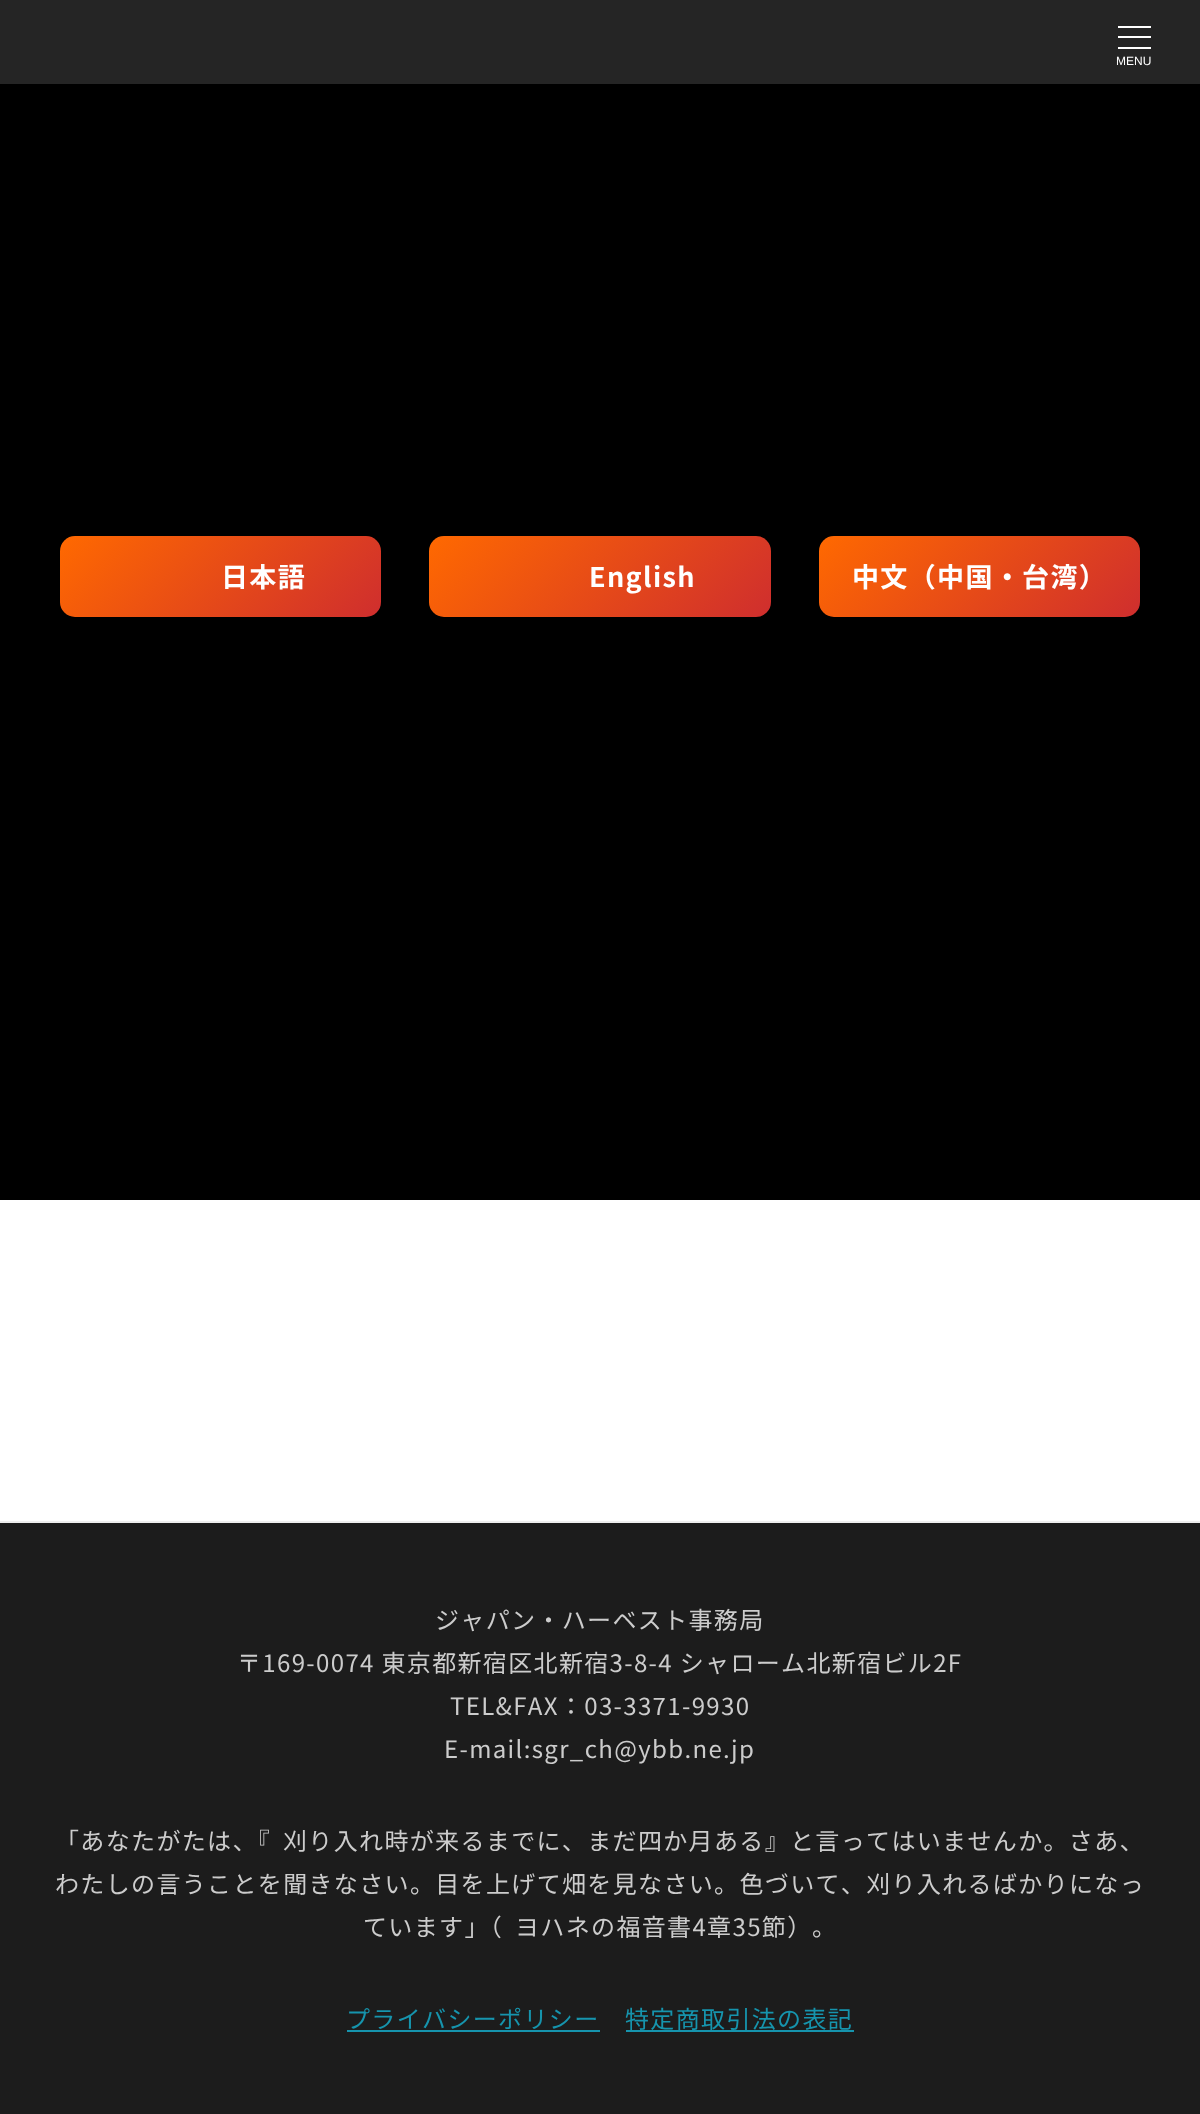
<svg xmlns="http://www.w3.org/2000/svg" width="1200" height="2114">
	<style>*{font-kerning:none!important;font-variant-ligatures:none!important}</style>
	<defs>
		<linearGradient id="g1" gradientUnits="userSpaceOnUse" x1="120" y1="476" x2="321" y2="677"><stop offset="0" stop-color="#FF6900" /><stop offset="1" stop-color="#CF2E2E" /></linearGradient>
		<linearGradient id="g2" gradientUnits="userSpaceOnUse" x1="494" y1="470" x2="706" y2="682"><stop offset="0" stop-color="#FF6900" /><stop offset="1" stop-color="#CF2E2E" /></linearGradient>
		<linearGradient id="g3" gradientUnits="userSpaceOnUse" x1="879" y1="476" x2="1080" y2="677"><stop offset="0" stop-color="#FF6900" /><stop offset="1" stop-color="#CF2E2E" /></linearGradient>
	</defs>
	<rect width="100%" height="100%" fill="#FFFFFF" />
	<rect x="0" y="0" width="1200" height="84" fill="#252525" />
	<rect x="1118" y="26" width="33" height="2" fill="#FFFFFF" />
	<rect x="1118" y="36" width="33" height="2" fill="#FFFFFF" />
	<rect x="1118" y="47" width="33" height="2" fill="#FFFFFF" />
	<text x="1116" y="65" font-family="Liberation Sans" font-size="12" fill="#FFFFFF">MENU</text>
	<rect x="0" y="84" width="1200" height="1116" fill="#000000" />
	<rect x="60" y="536" width="321" height="81" rx="15" fill="url(#g1)" />
	<text x="221" y="587" font-family="Noto Sans JP" font-size="27" font-weight="700" letter-spacing="1.35" fill="#FFFFFF">日本語</text>
	<rect x="429" y="536" width="342" height="81" rx="15" fill="url(#g2)" />
	<text x="589" y="587" font-family="Noto Sans JP" font-size="27" font-weight="700" letter-spacing="1.35" fill="#FFFFFF">English</text>
	<rect x="819" y="536" width="321" height="81" rx="15" fill="url(#g3)" />
	<text x="852" y="587" font-family="Noto Sans JP" font-size="27" font-weight="700" letter-spacing="1.35" fill="#FFFFFF">中文（中国・台湾）</text>
	<rect x="0" y="1521" width="1200" height="2" fill="#EEEEEE" />
	<rect x="0" y="1523" width="1200" height="591" fill="#1C1C1C" />
	<g font-family="Noto Sans JP" font-size="24" letter-spacing="1.35" fill="#CCCCCC">
		<text x="435" y="1629">ジャパン・ハーベスト事務局</text>
		<text x="237" y="1672">〒169-0074 東京都新宿区北新宿3-8-4 シャローム北新宿ビル2F</text>
		<text x="450" y="1715">TEL&amp;FAX：03-3371-9930</text>
		<text x="444" y="1758">E-mail:sgr_ch@ybb.ne.jp</text>
		<text x="55" y="1850">「あなたがたは、『</text>
		<text x="283" y="1850">刈り入れ時が来るまでに、まだ四か月ある』と言ってはいませんか。さあ、</text>
		<text x="55" y="1893">わたしの言うことを聞きなさい。目を上げて畑を見なさい。色づいて、刈り入れるばかりになっ</text>
		<text x="363" y="1936">ています」（</text>
		<text x="515" y="1936">ヨハネの福音書4章35節）</text>
		<text x="812" y="1936">。</text>
	</g>
	<text x="346" y="2028" font-family="Noto Sans JP" font-size="24" letter-spacing="1.35" fill="#1694AD">プライバシーポリシー</text>
	<rect x="347" y="2030" width="253" height="2" fill="#1694AD" />
	<text x="625" y="2028" font-family="Noto Sans JP" font-size="24" letter-spacing="1.35" fill="#1694AD">特定商取引法の表記</text>
	<rect x="626" y="2030" width="228" height="2" fill="#1694AD" />
</svg>
